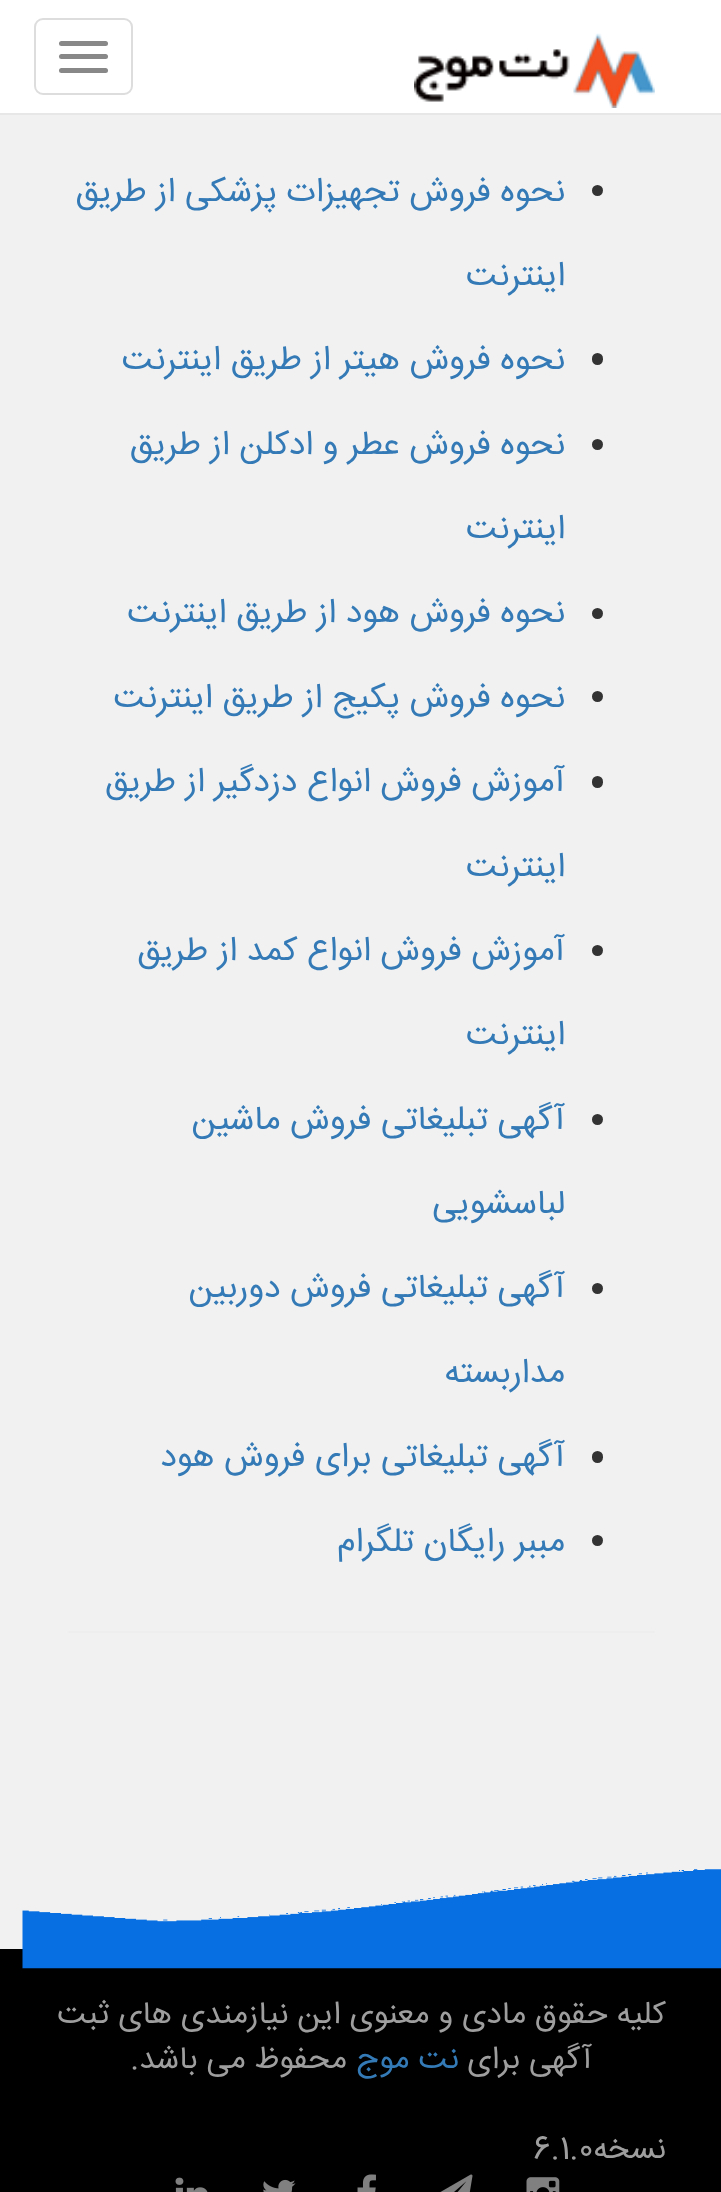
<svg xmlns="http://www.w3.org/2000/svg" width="721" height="2192">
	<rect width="100%" height="100%" fill="#F1F1F1" />
	<rect x="0" y="0" width="721" height="113" fill="#FFFFFF" />
	<rect x="0" y="113" width="721" height="2" fill="#E7E7E7" />
	<image x="414" y="33" width="241" height="75" href="assets/img1.png" />
	<rect x="35" y="19" width="97" height="75" rx="8" fill="none" stroke="#DDDDDD" stroke-width="2" />
	<rect x="59" y="41" width="49" height="5" rx="2.5" fill="#888888" />
	<rect x="59" y="54" width="49" height="5" rx="2.5" fill="#888888" />
	<rect x="59" y="68" width="49" height="5" rx="2.5" fill="#888888" />
	<circle cx="597.5" cy="190.5" r="5.5" fill="#333333" />
	<g font-family="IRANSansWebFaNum" font-size="33.75" direction="rtl" fill="#337AB7">
		<text x="565" y="201">نحوه فروش تجهیزات پزشکی از طریق</text>
		<text x="565" y="285">اینترنت</text>
	</g>
	<rect x="592" y="353" width="11" height="12" rx="5.5" fill="#333333" />
	<text x="565" y="369" font-family="IRANSansWebFaNum" font-size="33.75" direction="rtl" fill="#337AB7">نحوه فروش هیتر از طریق اینترنت</text>
	<circle cx="597.5" cy="444.5" r="5.5" fill="#333333" />
	<g font-family="IRANSansWebFaNum" font-size="33.75" direction="rtl" fill="#337AB7">
		<text x="565" y="454">نحوه فروش عطر و ادکلن از طریق</text>
		<text x="565" y="538">اینترنت</text>
	</g>
	<circle cx="597.5" cy="613.5" r="5.5" fill="#333333" />
	<text x="565" y="622" font-family="IRANSansWebFaNum" font-size="33.75" direction="rtl" fill="#337AB7">نحوه فروش هود از طریق اینترنت</text>
	<circle cx="597.5" cy="696.5" r="5.5" fill="#333333" />
	<text x="565" y="707" font-family="IRANSansWebFaNum" font-size="33.75" direction="rtl" fill="#337AB7">نحوه فروش پکیج از طریق اینترنت</text>
	<rect x="592" y="776" width="11" height="12" rx="5.5" fill="#333333" />
	<g font-family="IRANSansWebFaNum" font-size="33.75" direction="rtl" fill="#337AB7">
		<text x="565" y="791">آموزش فروش انواع دزدگیر از طریق</text>
		<text x="565" y="876">اینترنت</text>
	</g>
	<circle cx="597.5" cy="950.5" r="5.5" fill="#333333" />
	<g font-family="IRANSansWebFaNum" font-size="33.75" direction="rtl" fill="#337AB7">
		<text x="565" y="960">آموزش فروش انواع کمد از طریق</text>
		<text x="565" y="1044">اینترنت</text>
	</g>
	<circle cx="597.5" cy="1119.5" r="5.5" fill="#333333" />
	<g font-family="IRANSansWebFaNum" font-size="33.75" direction="rtl" fill="#337AB7">
		<text x="565" y="1129">آگهی تبلیغاتی فروش ماشین</text>
		<text x="565" y="1213">لباسشویی</text>
	</g>
	<circle cx="597.5" cy="1288.5" r="5.5" fill="#333333" />
	<g font-family="IRANSansWebFaNum" font-size="33.75" direction="rtl" fill="#337AB7">
		<text x="565" y="1297">آگهی تبلیغاتی فروش دوربین</text>
		<text x="565" y="1382">مداربسته</text>
	</g>
	<rect x="592" y="1451" width="11" height="12" rx="5.5" fill="#333333" />
	<text x="565" y="1466" font-family="IRANSansWebFaNum" font-size="33.75" direction="rtl" fill="#337AB7">آگهی تبلیغاتی برای فروش هود</text>
	<circle cx="597.5" cy="1540.5" r="5.5" fill="#333333" />
	<text x="565" y="1551" font-family="IRANSansWebFaNum" font-size="33.75" direction="rtl" fill="#337AB7">مببر رایگان تلگرام</text>
	<rect x="68" y="1631" width="587" height="2" fill="#EEEEEE" />
	<rect x="0" y="1949" width="721" height="243" fill="#000000" />
	<image x="22" y="1869" width="699" height="100" href="assets/img2.png" />
	<g font-family="IRANSansWebFaNum" font-size="31.5" direction="rtl" fill="#9E9E9E">
		<text x="666" y="2023">کلیه حقوق مادی و معنوی این نیازمندی های ثبت</text>
		<text x="592" y="2068">آگهی برای</text>
	</g>
	<text x="459" y="2068" font-family="IRANSansWebFaNum" font-size="31.5" direction="rtl" fill="#337AB7">نت موج</text>
	<g font-family="IRANSansWebFaNum" font-size="31.5" direction="rtl" fill="#9E9E9E">
		<text x="347" y="2068">محفوظ می باشد.</text>
		<text x="666" y="2158">نسخه</text>
	</g>
	<text x="533" y="2158" font-family="IRANSansWebFaNum" font-size="31.5" fill="#9E9E9E">6.1.0</text>
	<image x="526" y="2177" width="34" height="15" href="assets/img3.png" />
	<image x="440" y="2174" width="33" height="18" href="assets/img4.png" />
	<image x="357" y="2174" width="19" height="18" href="assets/img5.png" />
	<image x="263" y="2179" width="33" height="13" href="assets/img6.png" />
	<image x="175" y="2177" width="33" height="15" href="assets/img7.png" />
</svg>
